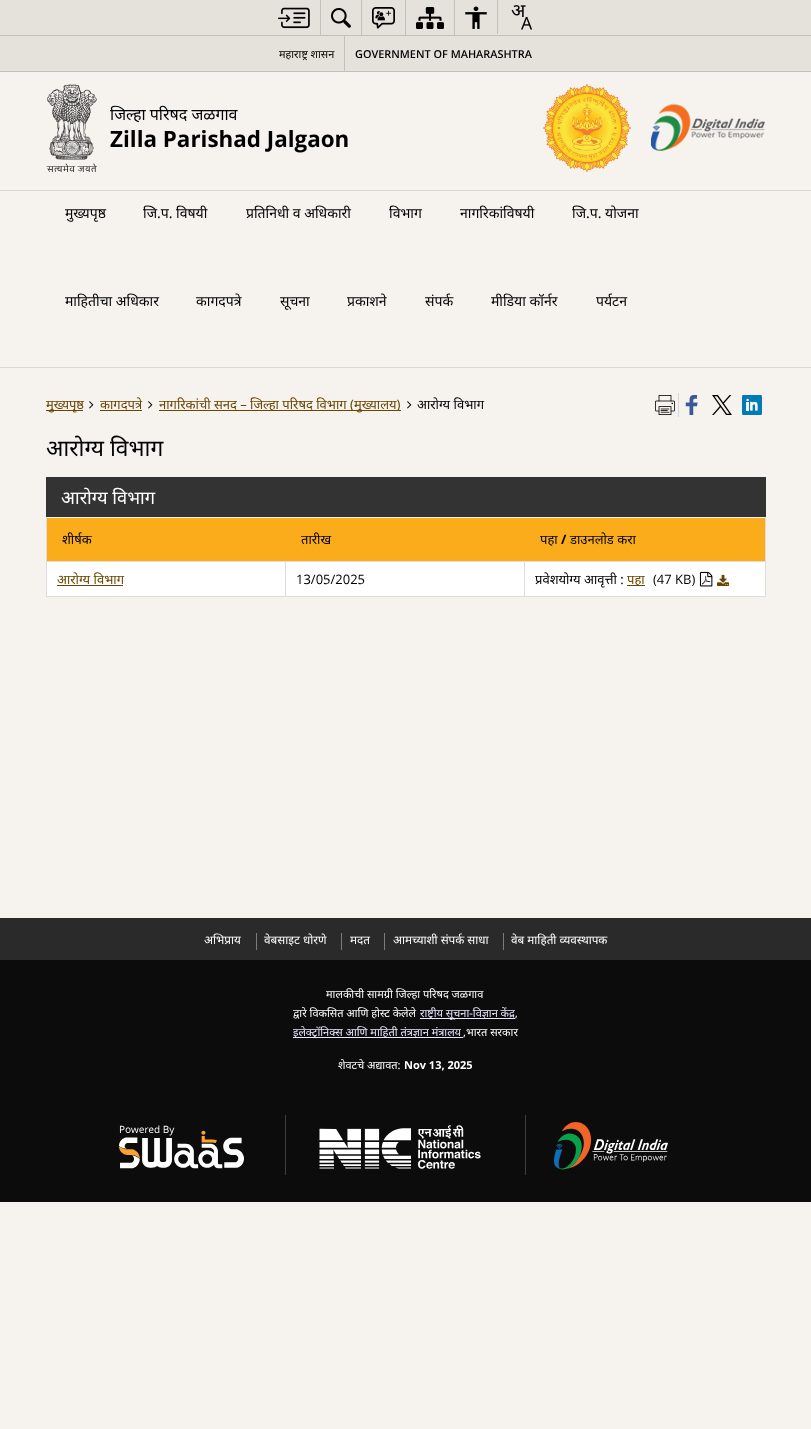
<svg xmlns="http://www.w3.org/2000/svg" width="811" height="1429">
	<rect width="100%" height="100%" fill="#F6F3EE" />
	<rect x="0" y="0" width="811" height="71" fill="#E5E2DB" />
	<rect x="0" y="71" width="811" height="1" fill="#C2C0C1" />
	<rect x="0" y="35" width="811" height="1" fill="#C2C0C1" />
	<image x="278" y="7" width="32" height="22" href="assets/img1.png" />
	<rect x="320" y="0" width="1" height="35" fill="#C2C0C1" />
	<image x="331" y="8" width="20" height="20" href="assets/img2.png" />
	<rect x="361" y="0" width="1" height="35" fill="#C2C0C1" />
	<image x="372" y="7" width="23" height="22" href="assets/img3.png" />
	<rect x="405" y="0" width="1" height="35" fill="#C2C0C1" />
	<image x="416" y="7" width="28" height="22" href="assets/img4.png" />
	<rect x="454" y="0" width="1" height="35" fill="#C2C0C1" />
	<image x="465" y="6" width="22" height="23" href="assets/img5.png" />
	<rect x="497" y="0" width="1" height="34" fill="#C2C0C1" />
	<image x="511" y="5" width="22" height="25" href="assets/img6.png" />
	<rect x="344" y="36" width="1" height="35" fill="#C2C0C1" />
	<text x="279" y="58" font-family="Noto Sans" font-size="10.9" fill="#000000">महाराष्ट्र शासन</text>
	<text x="355" y="58" font-family="Open Sans" font-size="10.9" font-weight="600" fill="#000000">GOVERNMENT OF MAHARASHTRA</text>
	<image x="46" y="84" width="51" height="88" href="assets/img7.png" />
	<text x="110" y="120" font-family="Noto Sans" font-size="16" fill="#000000">जिल्हा परिषद जळगाव</text>
	<text x="110" y="147" font-family="Open Sans" font-size="22.4" font-weight="700" fill="#000000">Zilla Parishad Jalgaon</text>
	<image x="543" y="84" width="88" height="88" href="assets/img8.png" />
	<image x="651" y="104" width="114" height="47" href="assets/img9.png" />
	<rect x="0" y="190" width="811" height="1" fill="#D8D8D8" />
	<rect x="0" y="367" width="811" height="1" fill="#D8D8D8" />
	<g font-family="Noto Sans" font-size="14" fill="#000000">
		<text x="65" y="218">मुख्यपृष्ठ</text>
		<text x="143" y="218">जि.प. विषयी</text>
		<text x="246" y="218">प्रतिनिधी व अधिकारी</text>
		<text x="389" y="218">विभाग</text>
		<text x="460" y="218">नागरिकांविषयी</text>
		<text x="572" y="218">जि.प. योजना</text>
		<text x="65" y="306">माहितीचा अधिकार</text>
		<text x="196" y="306">कागदपत्रे</text>
		<text x="280" y="306">सूचना</text>
		<text x="347" y="306">प्रकाशने</text>
		<text x="425" y="306">संपर्क</text>
		<text x="491" y="306">मीडिया कॉर्नर</text>
		<text x="596" y="306">पर्यटन</text>
	</g>
	<rect x="46" y="410" width="37" height="1" fill="#6A4501" />
	<text x="46" y="409" font-family="Noto Sans" font-size="13" fill="#6A4501">मुख्यपृष्ठ</text>
	<image x="89" y="401" width="5" height="8" href="assets/img10.png" />
	<text x="100" y="409" font-family="Noto Sans" font-size="13" fill="#6A4501">कागदपत्रे</text>
	<rect x="100" y="410" width="42" height="1" fill="#6A4501" />
	<image x="148" y="401" width="5" height="8" href="assets/img10.png" />
	<rect x="159" y="410" width="242" height="1" fill="#6A4501" />
	<text x="159" y="409" font-family="Noto Sans" font-size="13" fill="#6A4501">नागरिकांची सनद – जिल्हा परिषद विभाग (मुख्यालय)</text>
	<image x="407" y="401" width="5" height="8" href="assets/img10.png" />
	<text x="417" y="409" font-family="Noto Sans" font-size="13" fill="#000000">आरोग्य विभाग</text>
	<rect x="678" y="393" width="1" height="24" fill="#D8D8D8" />
	<image x="655" y="395" width="20" height="20" href="assets/img11.png" />
	<image x="685" y="395" width="13" height="20" href="assets/img12.png" />
	<image x="712" y="395" width="20" height="20" href="assets/img13.png" />
	<image x="742" y="395" width="20" height="20" href="assets/img14.png" />
	<text x="46" y="456" font-family="Noto Sans" font-size="22.75" fill="#000000">आरोग्य विभाग</text>
	<rect x="46.5" y="477.5" width="719" height="119" fill="none" stroke="#DDDDDD" />
	<rect x="46" y="477" width="720" height="40" fill="#333333" />
	<text x="61" y="504" font-family="Noto Sans" font-size="18.25" fill="#FFFFFF">आरोग्य विभाग</text>
	<rect x="47" y="518" width="718" height="43" fill="#FBAC1B" />
	<g font-family="Noto Sans" font-size="13" fill="#000000">
		<text x="62" y="544">शीर्षक</text>
		<text x="301" y="544">तारीख</text>
		<text x="540" y="544">पहा</text>
	</g>
	<text x="561" y="544" font-family="Open Sans" font-size="13" font-weight="700" fill="#000000">/</text>
	<text x="570" y="544" font-family="Noto Sans" font-size="13" fill="#000000">डाउनलोड करा</text>
	<rect x="47" y="562" width="238" height="34" fill="#FFFFFF" />
	<rect x="47" y="561" width="718" height="1" fill="#DDDDDD" />
	<rect x="285" y="561" width="1" height="35" fill="#DDDDDD" />
	<text x="57" y="584" font-family="Noto Sans" font-size="13" fill="#6A4501">आरोग्य विभाग</text>
	<rect x="57" y="585" width="66" height="1" fill="#6A4501" />
	<rect x="286" y="562" width="238" height="34" fill="#FFFFFF" />
	<rect x="524" y="561" width="1" height="35" fill="#DDDDDD" />
	<text x="296" y="584" font-family="Open Sans" font-size="13" fill="#000000">13/05/2025</text>
	<rect x="525" y="562" width="240" height="34" fill="#FFFFFF" />
	<text x="535" y="584" font-family="Noto Sans" font-size="13" fill="#000000">प्रवेशयोग्य आवृत्ती :</text>
	<rect x="627" y="585" width="18" height="1" fill="#6A4501" />
	<text x="627" y="584" font-family="Noto Sans" font-size="13" fill="#6A4501">पहा</text>
	<text x="653" y="584" font-family="Open Sans" font-size="13" fill="#000000">(47 KB)</text>
	<image x="699" y="571" width="14" height="16" href="assets/img15.png" />
	<image x="717" y="574" width="13" height="12" href="assets/img16.png" />
	<rect x="0" y="918" width="811" height="42" fill="#2A2A2A" />
	<text x="204" y="944" font-family="Noto Sans" font-size="11.75" fill="#FFFFFF">अभिप्राय</text>
	<rect x="256" y="933" width="1" height="17" fill="#7C7C7C" />
	<text x="264" y="944" font-family="Noto Sans" font-size="11.75" fill="#FFFFFF">वेबसाइट धोरणे</text>
	<rect x="341" y="933" width="1" height="17" fill="#7C7C7C" />
	<text x="350" y="944" font-family="Noto Sans" font-size="11.75" fill="#FFFFFF">मदत</text>
	<rect x="384" y="933" width="1" height="17" fill="#7C7C7C" />
	<text x="393" y="944" font-family="Noto Sans" font-size="11.75" fill="#FFFFFF">आमच्याशी संपर्क साधा</text>
	<rect x="503" y="933" width="1" height="17" fill="#7C7C7C" />
	<text x="511" y="944" font-family="Noto Sans" font-size="11.75" fill="#FFFFFF">वेब माहिती व्यवस्थापक</text>
	<rect x="0" y="960" width="811" height="242" fill="#0C0C0C" />
	<g font-family="Noto Sans" font-size="11" fill="#FFFFFF">
		<text x="326" y="998">मालकीची सामग्री जिल्हा परिषद जळगाव</text>
		<text x="293" y="1017">द्वारे विकसित आणि होस्ट केलेले</text>
	</g>
	<rect x="420" y="1018" width="95" height="1" fill="#EAE6FF" />
	<text x="420" y="1017" font-family="Noto Sans" font-size="11" fill="#EAE6FF">राष्ट्रीय सूचना-विज्ञान केंद्र</text>
	<text x="515" y="1017" font-family="Open Sans" font-size="11" fill="#FFFFFF">,</text>
	<rect x="293" y="1037" width="170" height="1" fill="#EAE6FF" />
	<text x="293" y="1036" font-family="Noto Sans" font-size="11" fill="#EAE6FF">इलेक्ट्रॉनिक्स आणि माहिती तंत्रज्ञान मंत्रालय</text>
	<g font-family="Noto Sans" font-size="11" fill="#FFFFFF">
		<text x="463" y="1036">,भारत सरकार</text>
		<text x="338" y="1069">शेवटचे अद्यावत:</text>
	</g>
	<text x="404" y="1069" font-family="Open Sans" font-size="11" font-weight="700" fill="#FFFFFF">Nov 13, 2025</text>
	<image x="119" y="1125" width="125" height="44" href="assets/img17.png" />
	<rect x="285" y="1115" width="1" height="60" fill="#3F3F3F" />
	<image x="319" y="1125" width="162" height="44" href="assets/img18.png" />
	<rect x="525" y="1115" width="1" height="60" fill="#3F3F3F" />
	<image x="554" y="1122" width="114" height="48" href="assets/img19.png" />
</svg>
